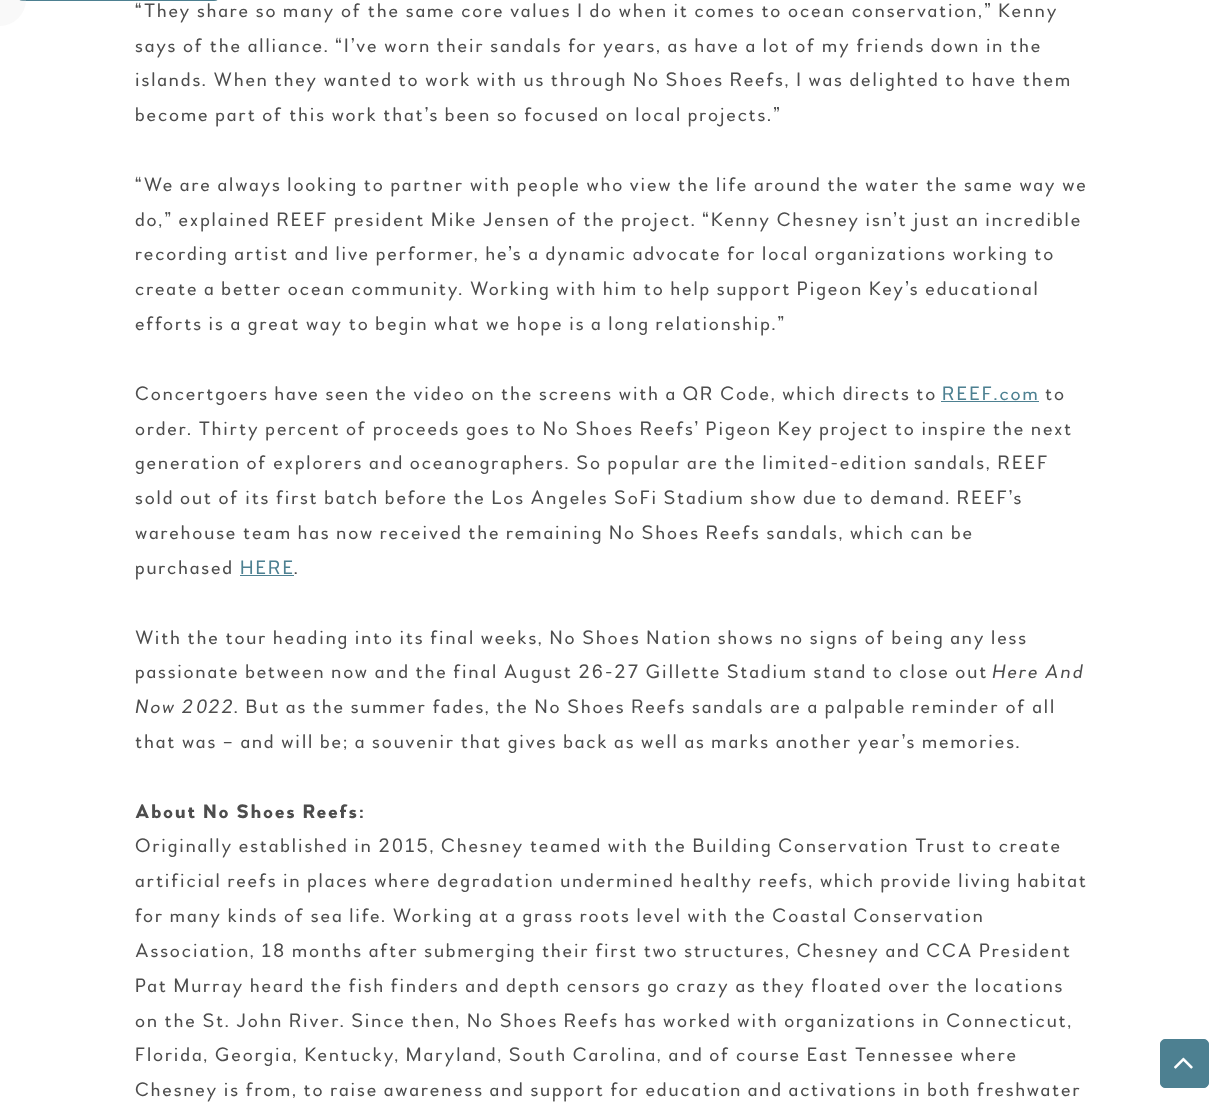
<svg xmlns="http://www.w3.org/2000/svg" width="1226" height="1104">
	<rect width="100%" height="100%" fill="#FFFFFF" />
	<rect x="18.5" y="-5.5" width="200" height="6" rx="4.5" fill="none" stroke="#4D8091" />
	<circle cx="-0.5" cy="-0.5" r="26.5" fill="#E6E6E6" fill-opacity="0.25" />
	<g font-family="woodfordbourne" font-size="19.35" letter-spacing="1.95" fill="#4D4D4D">
		<text x="135" y="17">“They share so many of the same core values I do when it comes to ocean conservation,” Kenny</text>
		<text x="135" y="52">says of the alliance. “I’ve worn their sandals for years, as have a lot of my friends down in the</text>
		<text x="135" y="86">islands. When they wanted to work with us through No Shoes Reefs, I was delighted to have them</text>
		<text x="135" y="121">become part of this work that’s been so focused on local projects.”</text>
		<text x="135" y="191">“We are always looking to partner with people who view the life around the water the same way we</text>
		<text x="135" y="226">do,” explained REEF president Mike Jensen of the project. “Kenny Chesney isn’t just an incredible</text>
		<text x="135" y="260">recording artist and live performer, he’s a dynamic advocate for local organizations working to</text>
		<text x="135" y="295">create a better ocean community. Working with him to help support Pigeon Key’s educational</text>
		<text x="135" y="330">efforts is a great way to begin what we hope is a long relationship.”</text>
		<text x="135" y="400">Concertgoers have seen the video on the screens with a QR Code, which directs to</text>
	</g>
	<text x="942" y="400" font-family="woodfordbourne" font-size="19.35" letter-spacing="1.95" fill="#4D8091">REEF.com</text>
	<rect x="941" y="401" width="98" height="1" fill="#4D8091" />
	<g font-family="woodfordbourne" font-size="19.35" letter-spacing="1.95" fill="#4D4D4D">
		<text x="1045" y="400">to</text>
		<text x="135" y="435">order. Thirty percent of proceeds goes to No Shoes Reefs’ Pigeon Key project to inspire the next</text>
		<text x="135" y="469">generation of explorers and oceanographers. So popular are the limited-edition sandals, REEF</text>
		<text x="135" y="504">sold out of its first batch before the Los Angeles SoFi Stadium show due to demand. REEF’s</text>
		<text x="135" y="539">warehouse team has now received the remaining No Shoes Reefs sandals, which can be</text>
		<text x="135" y="574">purchased</text>
	</g>
	<text x="240" y="574" font-family="woodfordbourne" font-size="19.35" letter-spacing="1.95" fill="#4D8091">HERE</text>
	<rect x="240" y="575" width="54" height="1" fill="#4D8091" />
	<g font-family="woodfordbourne" font-size="19.35" letter-spacing="1.95" fill="#4D4D4D">
		<text x="294" y="574">.</text>
		<text x="135" y="644">With the tour heading into its final weeks, No Shoes Nation shows no signs of being any less</text>
		<text x="135" y="678">passionate between now and the final August 26-27 Gillette Stadium stand to close out</text>
	</g>
	<g font-family="woodfordbourne" font-size="19.35" font-style="italic" letter-spacing="1.95" fill="#4D4D4D">
		<text x="992" y="678">Here And</text>
		<text x="135" y="713">Now 2022</text>
	</g>
	<g font-family="woodfordbourne" font-size="19.35" letter-spacing="1.95" fill="#4D4D4D">
		<text x="234" y="713">. But as the summer fades, the No Shoes Reefs sandals are a palpable reminder of all</text>
		<text x="135" y="748">that was – and will be; a souvenir that gives back as well as marks another year’s memories.</text>
	</g>
	<text x="135" y="818" font-family="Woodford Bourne" font-size="19.35" font-weight="700" letter-spacing="1.95" fill="#4D4D4D">About No Shoes Reefs:</text>
	<g font-family="woodfordbourne" font-size="19.35" letter-spacing="1.95" fill="#4D4D4D">
		<text x="135" y="852">Originally established in 2015, Chesney teamed with the Building Conservation Trust to create</text>
		<text x="135" y="887">artificial reefs in places where degradation undermined healthy reefs, which provide living habitat</text>
		<text x="135" y="922">for many kinds of sea life. Working at a grass roots level with the Coastal Conservation</text>
		<text x="135" y="957">Association, 18 months after submerging their first two structures, Chesney and CCA President</text>
		<text x="135" y="992">Pat Murray heard the fish finders and depth censors go crazy as they floated over the locations</text>
		<text x="135" y="1027">on the St. John River. Since then, No Shoes Reefs has worked with organizations in Connecticut,</text>
		<text x="135" y="1061">Florida, Georgia, Kentucky, Maryland, South Carolina, and of course East Tennessee where</text>
		<text x="135" y="1096">Chesney is from, to raise awareness and support for education and activations in both freshwater</text>
	</g>
	<rect x="1160.5" y="1039.5" width="48" height="48" rx="4.5" fill="#4D8091" stroke="#4D8091" />
	<image x="1174" y="1057" width="19" height="12" href="assets/img1.png" />
</svg>
